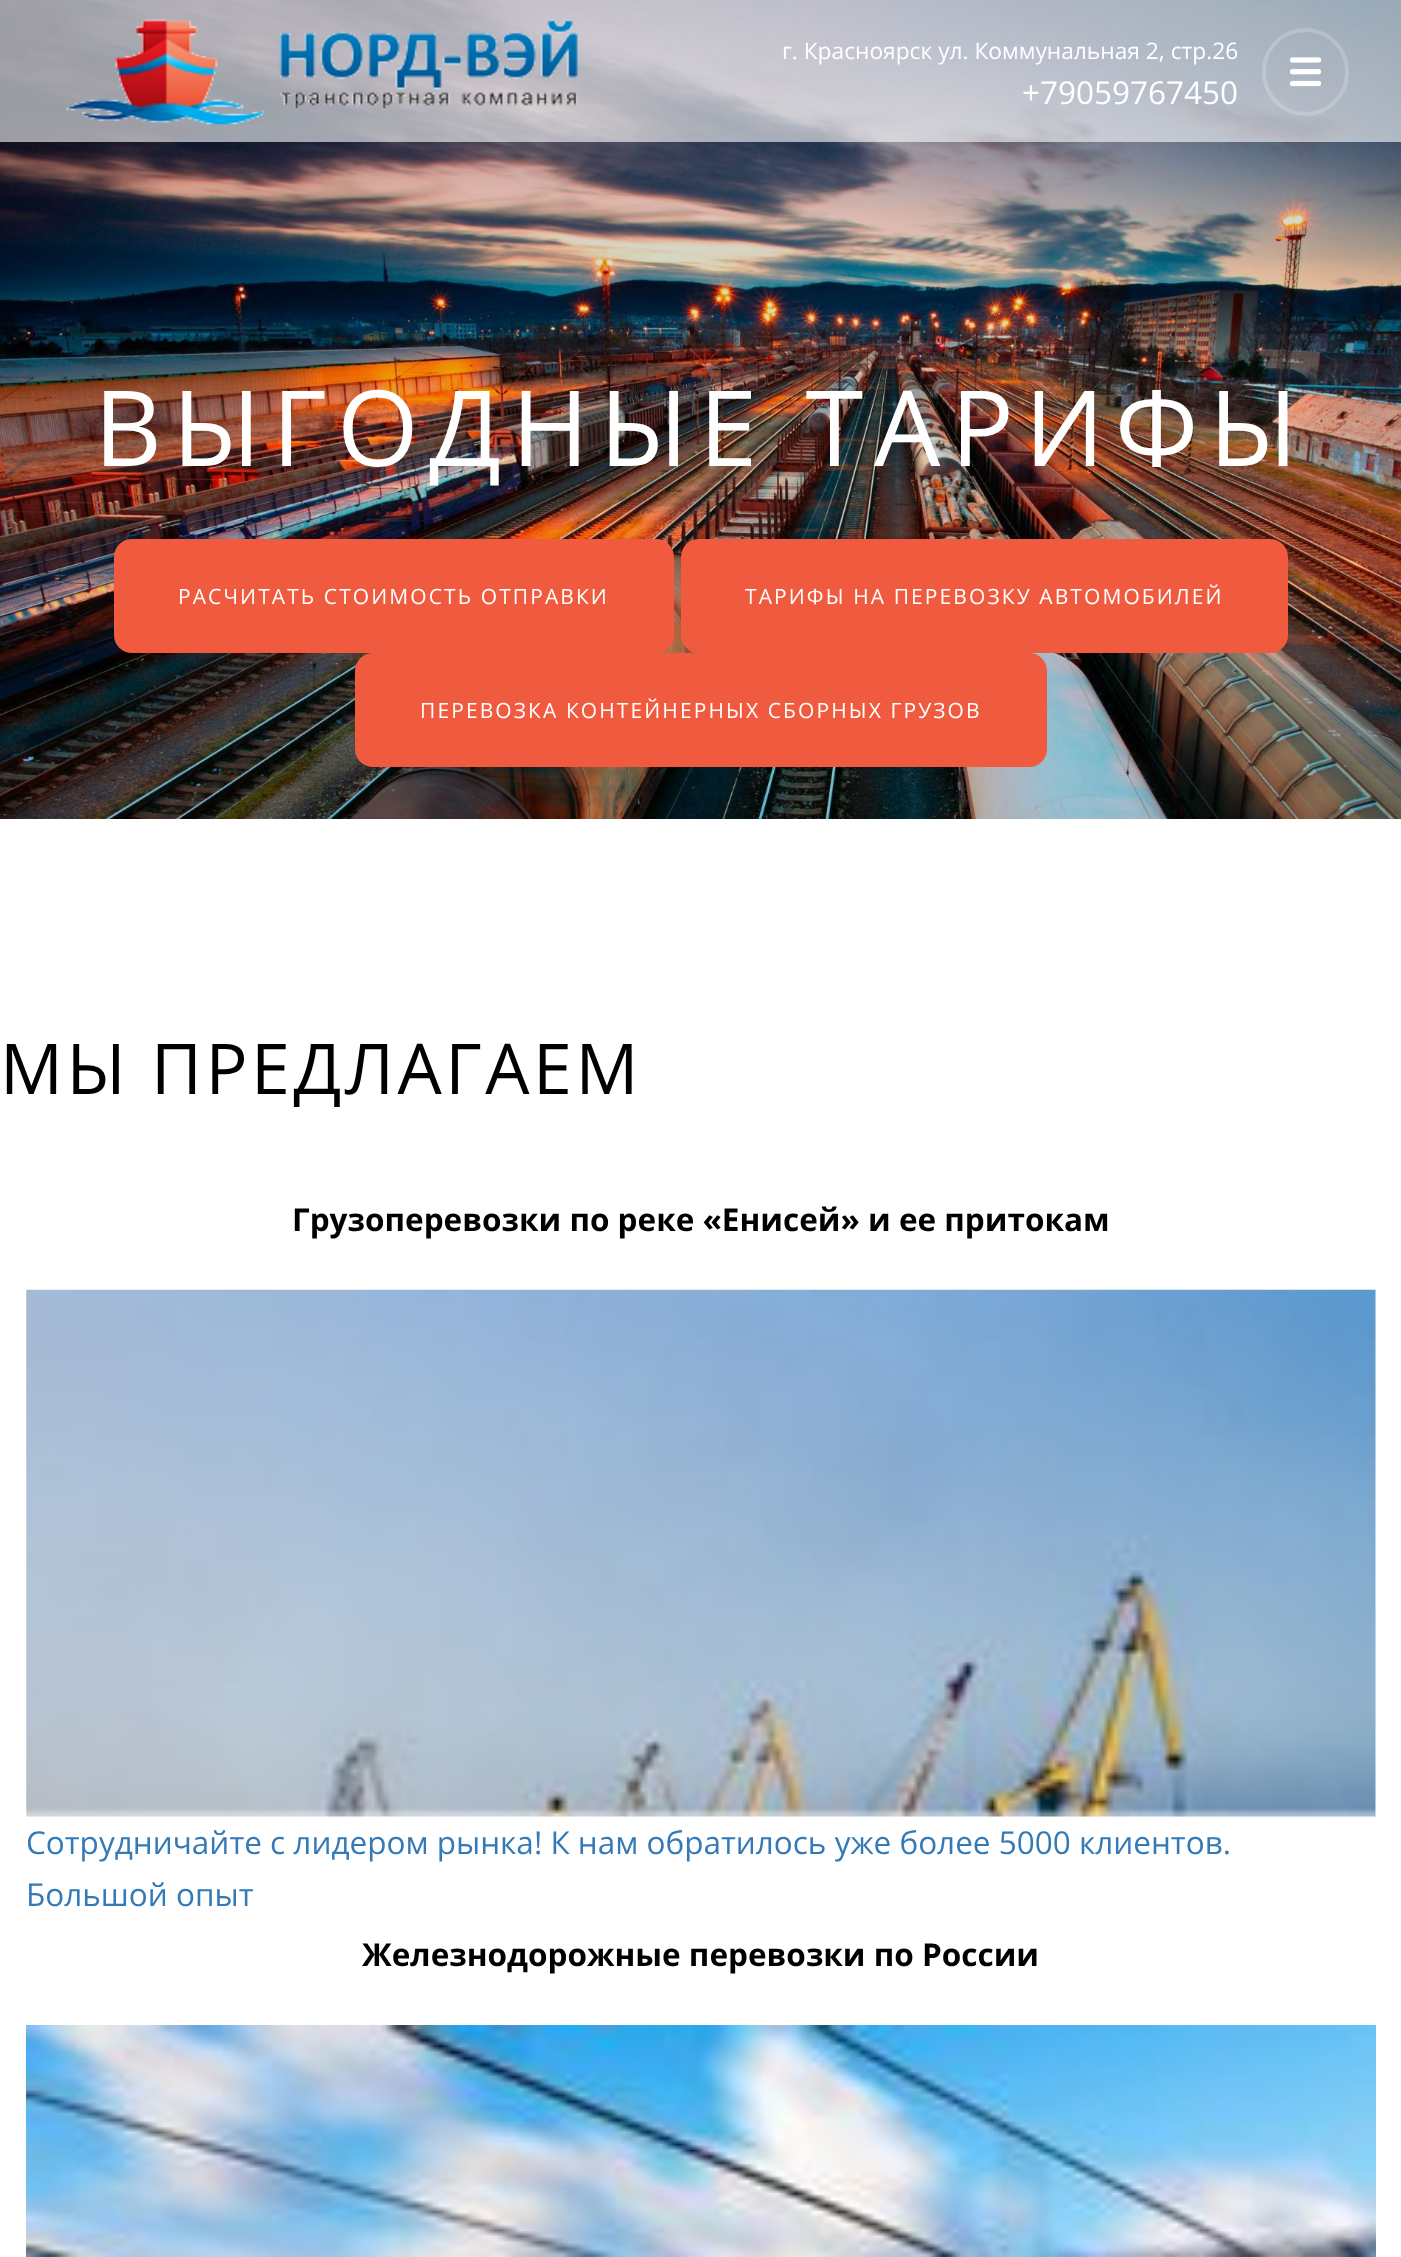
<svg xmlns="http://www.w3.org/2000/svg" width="1401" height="2257">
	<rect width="100%" height="100%" fill="#FFFFFF" />
	<image x="0" y="0" width="1401" height="819" href="assets/img1.png" />
	<rect x="0" y="0" width="1401" height="142" fill="#FFFFFF" fill-opacity="0.6" />
	<image x="66" y="19" width="512" height="106" href="assets/img2.png" />
	<text x="782" y="59" font-family="Open Sans" font-size="22.75" fill="#FFFFFF">г. Красноярск ул. Коммунальная 2, стр.26</text>
	<text x="1022" y="104" font-family="Open Sans" font-size="31.5" fill="#FFFFFF">+79059767450</text>
	<rect x="1264" y="30" width="83" height="84" rx="41.5" fill="none" stroke="#FFFFFF" stroke-opacity="0.2" stroke-width="4" />
	<image x="1290" y="57" width="31" height="30" href="assets/img3.png" />
	<text x="94" y="466" font-family="Open Sans" font-size="105" letter-spacing="10.5" fill="#FFFFFF">ВЫГОДНЫЕ ТАРИФЫ</text>
	<rect x="114" y="539" width="560" height="114" rx="18" fill="#F05B3F" />
	<text x="178" y="604" font-family="Open Sans" font-size="21" letter-spacing="2.1" fill="#FFFFFF">РАСЧИТАТЬ СТОИМОСТЬ ОТПРАВКИ</text>
	<rect x="681" y="539" width="607" height="114" rx="18" fill="#F05B3F" />
	<text x="745" y="604" font-family="Open Sans" font-size="21" letter-spacing="2.1" fill="#FFFFFF">ТАРИФЫ НА ПЕРЕВОЗКУ АВТОМОБИЛЕЙ</text>
	<rect x="355" y="653" width="692" height="114" rx="18" fill="#F05B3F" />
	<text x="420" y="718" font-family="Open Sans" font-size="21" letter-spacing="2.1" fill="#FFFFFF">ПЕРЕВОЗКА КОНТЕЙНЕРНЫХ СБОРНЫХ ГРУЗОВ</text>
	<text x="0" y="1094" font-family="Open Sans" font-size="70" letter-spacing="3.5" fill="#000000">МЫ ПРЕДЛАГАЕМ</text>
	<text x="292" y="1231" font-family="Open Sans" font-size="31.5" font-weight="700" fill="#000000">Грузоперевозки по реке «Енисей» и ее притокам</text>
	<image x="26" y="1289" width="1350" height="528" href="assets/img4.png" />
	<g font-family="Open Sans" font-size="31.5" fill="#337AB7">
		<text x="26" y="1854">Сотрудничайте с лидером рынка! К нам обратилось уже более 5000 клиентов.</text>
		<text x="26" y="1906">Большой опыт</text>
	</g>
	<text x="362" y="1966" font-family="Open Sans" font-size="31.5" font-weight="700" fill="#000000">Железнодорожные перевозки по России</text>
	<image x="26" y="2025" width="1350" height="232" href="assets/img5.png" />
</svg>
